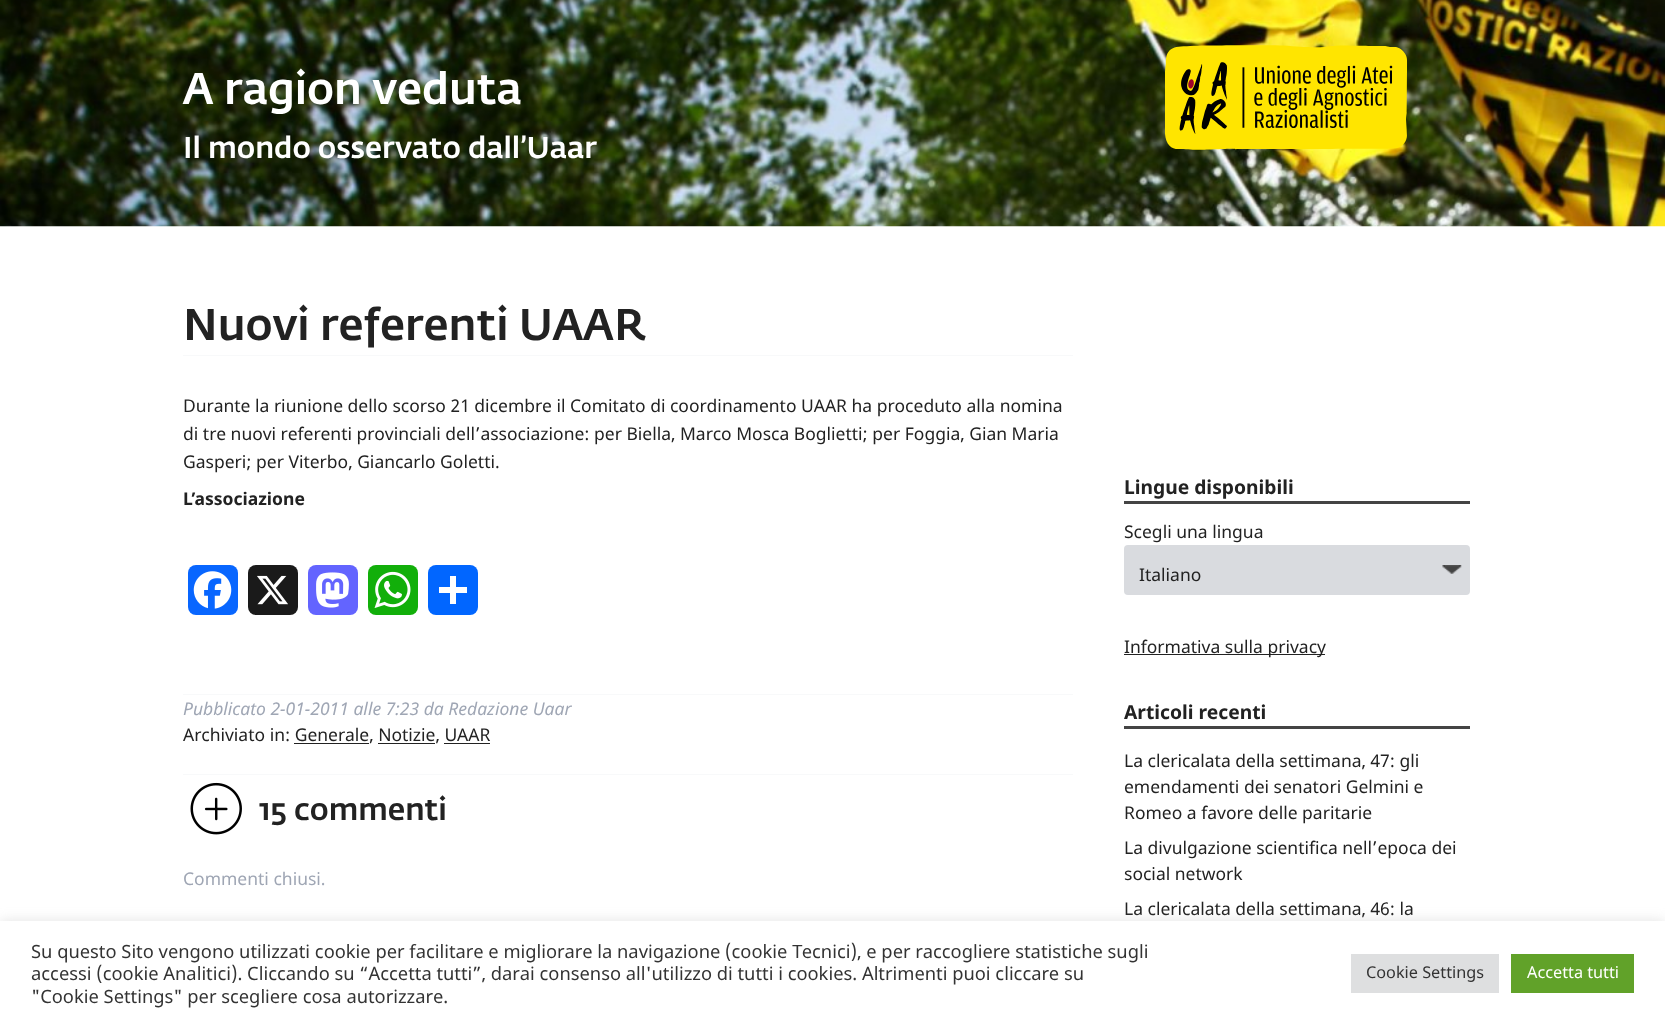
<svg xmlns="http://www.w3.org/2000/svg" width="1665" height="1023">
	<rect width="100%" height="100%" fill="#FFFFFF" />
	<image x="0" y="0" width="1665" height="227" href="assets/img1.png" />
	<text x="183" y="104" font-family="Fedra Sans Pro" font-size="43.75" font-weight="500" fill="#FFFFFF">A ragion veduta</text>
	<image x="1165" y="45" width="243" height="105" href="assets/img2.png" />
	<text x="183" y="158" font-family="Fedra Sans Pro" font-size="29.75" font-weight="500" fill="#FFFFFF">Il mondo osservato dall’Uaar</text>
	<rect x="183" y="355" width="890" height="1" fill="#F8F9FA" />
	<text x="183" y="340" font-family="Fedra Sans Pro" font-size="43.75" font-weight="500" fill="#222222">Nuovi referenti UAAR</text>
	<g font-family="Noto Sans" font-size="17.5" fill="#222222">
		<text x="183" y="412">Durante la riunione dello scorso 21 dicembre il Comitato di coordinamento UAAR ha proceduto alla nomina</text>
		<text x="183" y="440">di tre nuovi referenti provinciali dell’associazione: per Biella, Marco Mosca Boglietti; per Foggia, Gian Maria</text>
		<text x="183" y="468">Gasperi; per Viterbo, Giancarlo Goletti.</text>
	</g>
	<text x="183" y="505" font-family="Noto Sans" font-size="17.5" font-weight="700" fill="#222222">L’associazione</text>
	<rect x="188" y="565" width="50" height="50" rx="8" fill="#0866FF" />
	<image x="193" y="571" width="39" height="38" href="assets/img3.png" />
	<rect x="248" y="565" width="50" height="50" rx="8" fill="#1A1A1A" />
	<image x="257" y="575" width="31" height="30" href="assets/img4.png" />
	<rect x="308" y="565" width="50" height="50" rx="8" fill="#6364FF" />
	<image x="316" y="572" width="33" height="36" href="assets/img5.png" />
	<rect x="368" y="565" width="50" height="50" rx="8" fill="#12AF0A" />
	<image x="374" y="571" width="37" height="37" href="assets/img6.png" />
	<rect x="428" y="565" width="50" height="50" rx="8" fill="#0166FF" />
	<rect x="450" y="576" width="6" height="28" fill="#FFFFFF" />
	<rect x="439" y="587" width="28" height="6" fill="#FFFFFF" />
	<rect x="183" y="694" width="890" height="1" fill="#F8F9FA" />
	<text x="183" y="715" font-family="Noto Sans" font-size="17.5" font-style="italic" fill="#9FA6B4">Pubblicato 2-01-2011 alle 7:23 da Redazione Uaar</text>
	<text x="183" y="741" font-family="Noto Sans" font-size="17.5" fill="#222222">Archiviato in: Generale, Notizie, UAAR</text>
	<rect x="294" y="743" width="75" height="1" fill="#222222" />
	<rect x="378" y="743" width="57" height="1" fill="#222222" />
	<rect x="444" y="743" width="46" height="1" fill="#222222" />
	<image x="190" y="782" width="52" height="53" href="assets/img7.png" />
	<rect x="183" y="774" width="890" height="1" fill="#F8F9FA" />
	<text x="259" y="820" font-family="Fedra Sans Pro" font-size="30.5" font-weight="500" fill="#222222">15 commenti</text>
	<text x="183" y="885" font-family="Noto Sans" font-size="17.5" fill="#9FA6B4">Commenti chiusi.</text>
	<rect x="1124" y="501" width="346" height="3" fill="#444444" />
	<text x="1124" y="494" font-family="Noto Sans" font-size="19.25" font-weight="700" fill="#222222">Lingue disponibili</text>
	<text x="1124" y="538" font-family="Noto Sans" font-size="17.5" fill="#222222">Scegli una lingua</text>
	<rect x="1124" y="545" width="346" height="50" rx="4" fill="#D9DBDF" />
	<image x="1442" y="565" width="20" height="9" href="assets/img8.png" />
	<text x="1139" y="581" font-family="Noto Sans" font-size="17.5" fill="#222222">Italiano</text>
	<rect x="1124" y="654" width="201" height="1" fill="#222222" />
	<text x="1124" y="653" font-family="Noto Sans" font-size="17.5" fill="#222222">Informativa sulla privacy</text>
	<rect x="1124" y="726" width="346" height="3" fill="#444444" />
	<text x="1124" y="719" font-family="Noto Sans" font-size="19.25" font-weight="700" fill="#222222">Articoli recenti</text>
	<g font-family="Noto Sans" font-size="17.5" fill="#222222">
		<text x="1124" y="767">La clericalata della settimana, 47: gli</text>
		<text x="1124" y="793">emendamenti dei senatori Gelmini e</text>
		<text x="1124" y="819">Romeo a favore delle paritarie</text>
		<text x="1124" y="854">La divulgazione scientifica nell’epoca dei</text>
		<text x="1124" y="880">social network</text>
		<text x="1124" y="915">La clericalata della settimana, 46: la</text>
	</g>
	<rect x="0" y="920" width="1665" height="103" fill="#ACABAB" fill-opacity="0.3" filter="blur(6px)" />
	<rect x="0" y="921" width="1665" height="102" fill="#FFFFFF" />
	<g font-family="Noto Sans" font-size="18.33" fill="#333333">
		<text x="31" y="958">Su questo Sito vengono utilizzati cookie per facilitare e migliorare la navigazione (cookie Tecnici), e per raccogliere statistiche sugli</text>
		<text x="31" y="980">accessi (cookie Analitici). Cliccando su “Accetta tutti”, darai consenso all'utilizzo di tutti i cookies. Altrimenti puoi cliccare su</text>
		<text x="31" y="1003">"Cookie Settings" per scegliere cosa autorizzare.</text>
	</g>
	<rect x="1351" y="954" width="148" height="39" fill="#DEDFE0" />
	<text x="1366" y="978" font-family="Noto Sans" font-size="16.25" fill="#333333">Cookie Settings</text>
	<rect x="1511" y="954" width="123" height="39" fill="#61A229" />
	<text x="1527" y="978" font-family="Noto Sans" font-size="16.25" fill="#FFFFFF">Accetta tutti</text>
</svg>
